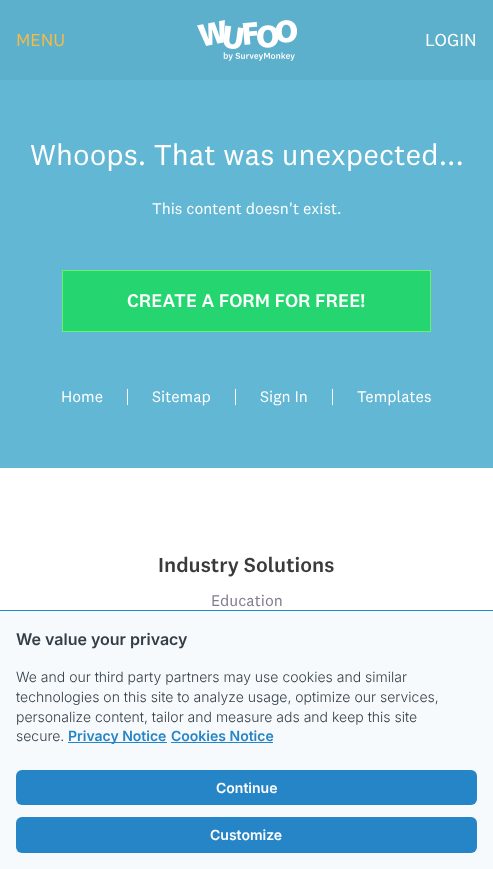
<svg xmlns="http://www.w3.org/2000/svg" width="493" height="869">
	<rect width="100%" height="100%" fill="#FFFFFF" />
	<rect x="0" y="0" width="493" height="80" fill="#5DB0CC" />
	<image x="197" y="20" width="100" height="41" href="assets/img1.png" />
	<text x="16" y="46" font-family="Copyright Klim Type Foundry" font-size="18" fill="#F6BB43">MENU</text>
	<text x="425" y="46" font-family="Copyright Klim Type Foundry" font-size="18" fill="#FFFFFF">LOGIN</text>
	<rect x="0" y="80" width="493" height="388" fill="#61B7D4" />
	<text x="30" y="165" font-family="Copyright Klim Type Foundry" font-size="30" fill="#FFFFFF">Whoops. That was unexpected...</text>
	<text x="152" y="214" font-family="Copyright Klim Type Foundry" font-size="16" fill="#FFFFFF">This content doesn't exist.</text>
	<rect x="62.5" y="270.5" width="368" height="61" fill="#25D670" stroke="#6AF26E" />
	<text x="127" y="307" font-family="Copyright Klim Type Foundry" font-size="19" font-weight="500" fill="#FFFFFF">CREATE A FORM FOR FREE!</text>
	<rect x="127" y="389" width="1" height="16" fill="#FFFFFF" />
	<text x="61" y="402" font-family="Copyright Klim Type Foundry" font-size="16" fill="#FFFFFF">Home</text>
	<rect x="235" y="389" width="1" height="16" fill="#FFFFFF" />
	<text x="152" y="402" font-family="Copyright Klim Type Foundry" font-size="16" fill="#FFFFFF">Sitemap</text>
	<rect x="332" y="389" width="1" height="16" fill="#FFFFFF" />
	<g font-family="Copyright Klim Type Foundry" font-size="16" fill="#FFFFFF">
		<text x="260" y="402">Sign In</text>
		<text x="357" y="402">Templates</text>
	</g>
	<text x="158" y="572" font-family="Copyright Klim Type Foundry" font-size="21" font-weight="500" fill="#3A3A3A">Industry Solutions</text>
	<text x="211" y="606" font-family="Copyright Klim Type Foundry" font-size="16" fill="#837C8D">Education</text>
	<rect x="0" y="611" width="493" height="258" fill="#F7FAFC" />
	<rect x="0" y="610" width="493" height="1" fill="#2685C6" />
	<text x="16" y="645" font-family="Inter" font-size="16" font-weight="600" fill="#333E48">We value your privacy</text>
	<g font-family="Inter" font-size="14" font-weight="300" fill="#333E48">
		<text x="16" y="682">We and our third party partners may use cookies and similar</text>
		<text x="16" y="702">technologies on this site to analyze usage, optimize our services,</text>
		<text x="16" y="722">personalize content, tailor and measure ads and keep this site</text>
		<text x="16" y="741">secure.</text>
	</g>
	<rect x="68" y="742" width="99" height="1" fill="#2685C6" />
	<g font-family="Inter" font-size="14" font-weight="600" fill="#2685C6">
		<text x="68" y="741">Privacy Notice</text>
		<text x="171" y="741">Cookies Notice</text>
	</g>
	<rect x="171" y="742" width="102" height="1" fill="#2685C6" />
	<rect x="16" y="770" width="461" height="35" rx="6" fill="#2685C6" />
	<text x="216" y="793" font-family="Inter" font-size="14" font-weight="600" fill="#FFFFFF">Continue</text>
	<rect x="16" y="817" width="461" height="36" rx="6" fill="#2685C6" />
	<text x="210" y="840" font-family="Inter" font-size="14" font-weight="600" fill="#FFFFFF">Customize</text>
</svg>
